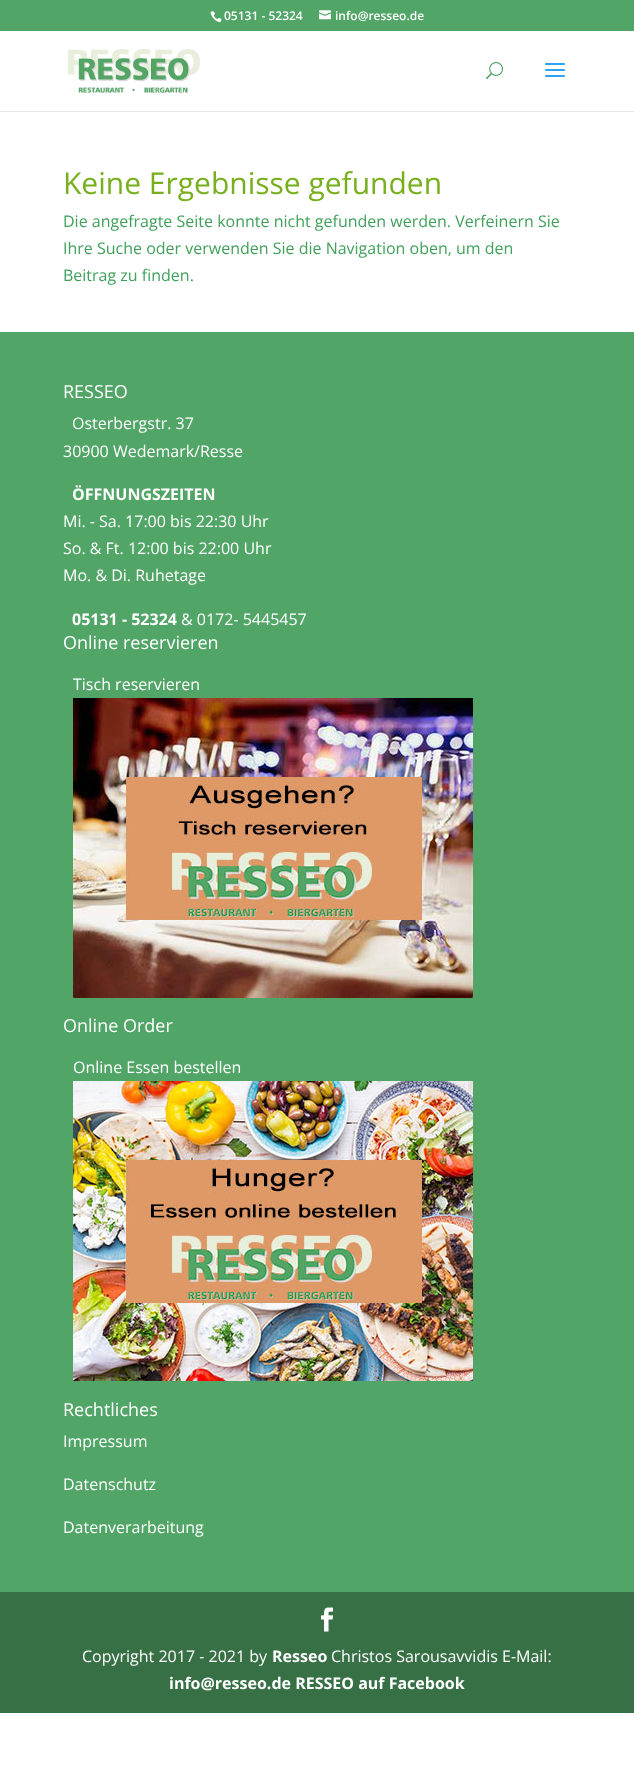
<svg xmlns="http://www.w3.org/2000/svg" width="634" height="1792">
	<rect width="100%" height="100%" fill="#FFFFFF" />
	<rect x="0" y="0" width="634" height="31" fill="#51A566" />
	<image x="210" y="11" width="12" height="12" href="assets/img1.png" />
	<text x="224" y="20" font-family="Open Sans" font-size="12" font-weight="600" fill="#FFFFFF">05131 - 52324</text>
	<image x="319" y="10" width="12" height="10" href="assets/img2.png" />
	<text x="335" y="20" font-family="Open Sans" font-size="12" font-weight="600" fill="#FFFFFF">info@resseo.de</text>
	<rect x="0" y="111" width="634" height="1" fill="#E6E6E6" />
	<image x="68" y="49" width="132" height="44" href="assets/img3.png" />
	<image x="486" y="62" width="17" height="18" href="assets/img4.png" />
	<image x="545" y="63" width="20" height="14" href="assets/img5.png" />
	<text x="63" y="194" font-family="Open Sans" font-size="30" fill="#77AF1D">Keine Ergebnisse gefunden</text>
	<g font-family="Open Sans" font-size="16" fill="#40A15B">
		<text x="63" y="227">Die angefragte Seite konnte nicht gefunden werden. Verfeinern Sie</text>
		<text x="63" y="254">Ihre Suche oder verwenden Sie die Navigation oben, um den</text>
		<text x="63" y="281">Beitrag zu finden.</text>
	</g>
	<rect x="0" y="332" width="634" height="1260" fill="#51A566" />
	<text x="63" y="398" font-family="Open Sans" font-size="18" fill="#FFFFFF">RESSEO</text>
	<g font-family="Open Sans" font-size="16" fill="#FFFFFF">
		<text x="72" y="429">Osterbergstr. 37</text>
		<text x="63" y="457">30900 Wedemark/Resse</text>
	</g>
	<text x="72" y="500" font-family="Open Sans" font-size="16" font-weight="700" fill="#FFFFFF">ÖFFNUNGSZEITEN</text>
	<g font-family="Open Sans" font-size="16" fill="#FFFFFF">
		<text x="63" y="527">Mi. - Sa. 17:00 bis 22:30 Uhr</text>
		<text x="63" y="554">So. &amp; Ft. 12:00 bis 22:00 Uhr</text>
		<text x="63" y="581">Mo. &amp; Di. Ruhetage</text>
	</g>
	<text x="72" y="625" font-family="Open Sans" font-size="16" font-weight="700" fill="#FFFFFF">05131 - 52324</text>
	<text x="181" y="625" font-family="Open Sans" font-size="16" fill="#FFFFFF">&amp; 0172- 5445457</text>
	<text x="63" y="649" font-family="Open Sans" font-size="18" fill="#FFFFFF">Online reservieren</text>
	<text x="73" y="690" font-family="Open Sans" font-size="16" fill="#FFFFFF">Tisch reservieren</text>
	<image x="73" y="698" width="400" height="300" href="assets/img6.png" />
	<text x="63" y="1032" font-family="Open Sans" font-size="18" fill="#FFFFFF">Online Order</text>
	<text x="73" y="1073" font-family="Open Sans" font-size="16" fill="#FFFFFF">Online Essen bestellen</text>
	<image x="73" y="1081" width="400" height="300" href="assets/img7.png" />
	<text x="63" y="1416" font-family="Open Sans" font-size="18" fill="#FFFFFF">Rechtliches</text>
	<g font-family="Open Sans" font-size="16" fill="#FFFFFF">
		<text x="63" y="1447">Impressum</text>
		<text x="63" y="1490">Datenschutz</text>
		<text x="63" y="1533">Datenverarbeitung</text>
	</g>
	<rect x="0" y="1592" width="634" height="121" fill="#377045" />
	<image x="321" y="1607" width="13" height="25" href="assets/img8.png" />
	<text x="82" y="1662" font-family="Open Sans" font-size="16" fill="#FFFFFF">Copyright 2017 - 2021 by</text>
	<text x="272" y="1662" font-family="Open Sans" font-size="16" font-weight="700" fill="#FFFFFF">Resseo</text>
	<text x="331" y="1662" font-family="Open Sans" font-size="16" fill="#FFFFFF">Christos Sarousavvidis E-Mail:</text>
	<text x="169" y="1689" font-family="Open Sans" font-size="16" font-weight="700" fill="#FFFFFF">info@resseo.de RESSEO auf Facebook</text>
</svg>
